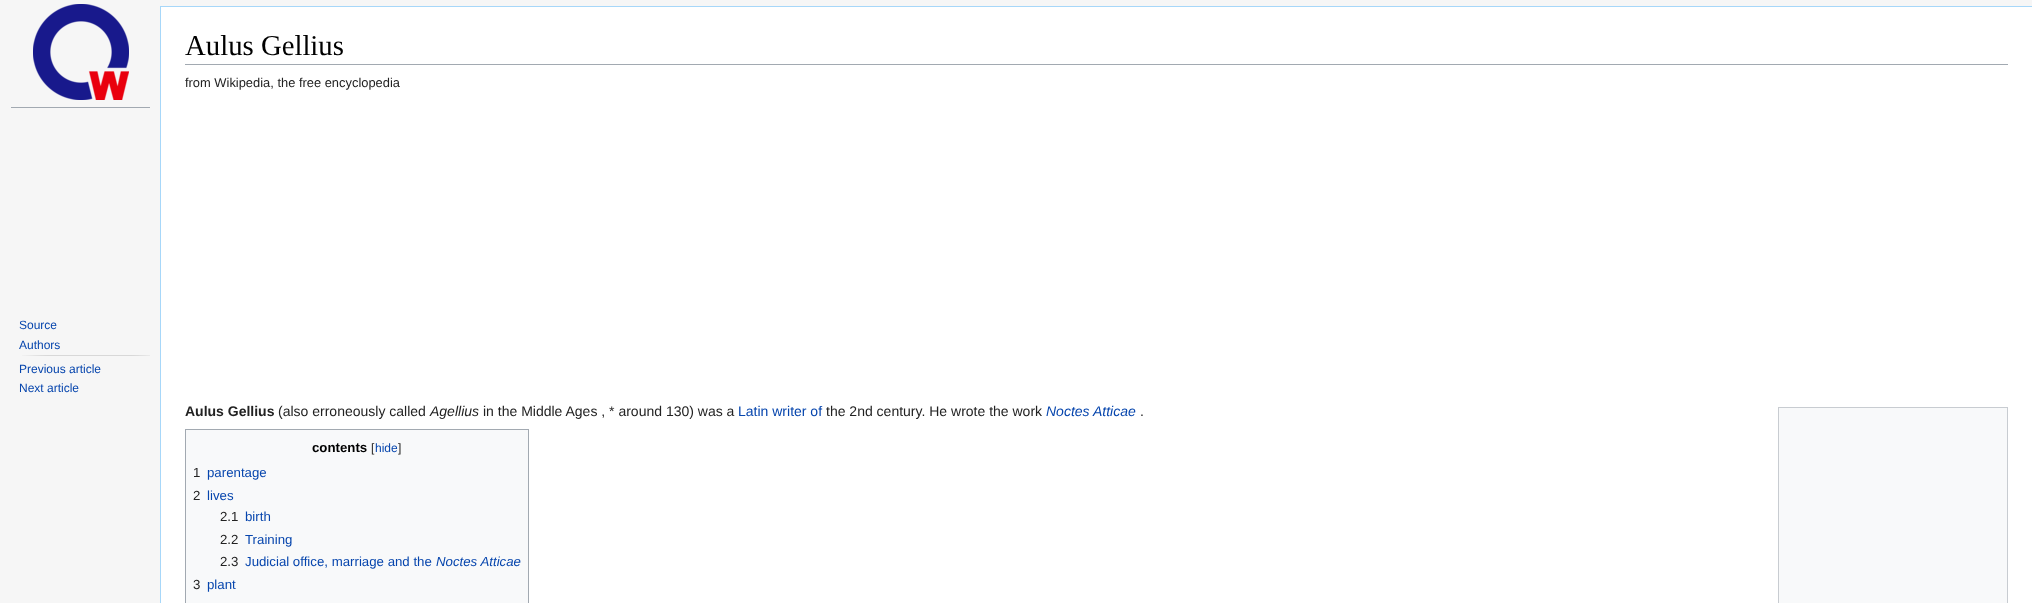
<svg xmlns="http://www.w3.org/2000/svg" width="2032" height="603">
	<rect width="100%" height="100%" fill="#F6F6F6" />
	<image x="33" y="4" width="96" height="96" href="assets/img1.png" />
	<rect x="11" y="107" width="139" height="1" fill="#A2A9B1" />
	<g font-family="Liberation Sans" font-size="12" fill="#0645AD">
		<text x="19" y="329">Source</text>
		<text x="19" y="349">Authors</text>
	</g>
	<image x="22" y="355" width="128" height="1" href="assets/img2.png" />
	<g font-family="Liberation Sans" font-size="12" fill="#0645AD">
		<text x="19" y="373">Previous article</text>
		<text x="19" y="392">Next article</text>
	</g>
	<rect x="161" y="7" width="1871" height="596" fill="#FFFFFF" />
	<rect x="160" y="6" width="1872" height="1" fill="#A7D7F9" />
	<rect x="160" y="6" width="1" height="597" fill="#A7D7F9" />
	<rect x="185" y="64" width="1823" height="1" fill="#A2A9B1" />
	<text x="185" y="55" font-family="Liberation Serif" font-size="28.75" fill="#000000">Aulus Gellius</text>
	<text x="185" y="87" font-family="Liberation Sans" font-size="12.9" fill="#222222">from Wikipedia, the free encyclopedia</text>
	<text x="185" y="416" font-family="Liberation Sans" font-size="14" font-weight="700" fill="#222222">Aulus Gellius</text>
	<text x="278" y="416" font-family="Liberation Sans" font-size="14" fill="#222222">(also erroneously called</text>
	<text x="430" y="416" font-family="Liberation Sans" font-size="14" font-style="italic" fill="#222222">Agellius</text>
	<text x="483" y="416" font-family="Liberation Sans" font-size="14" fill="#222222">in the Middle Ages , * around 130) was a</text>
	<text x="738" y="416" font-family="Liberation Sans" font-size="14" fill="#0645AD">Latin writer of</text>
	<text x="826" y="416" font-family="Liberation Sans" font-size="14" fill="#222222">the 2nd century. He wrote the work</text>
	<text x="1046" y="416" font-family="Liberation Sans" font-size="14" font-style="italic" fill="#0645AD">Noctes Atticae</text>
	<text x="1140" y="416" font-family="Liberation Sans" font-size="14" fill="#222222">.</text>
	<rect x="185.5" y="429.5" width="343" height="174" fill="#F8F9FA" stroke="#A2A9B1" />
	<text x="312" y="452" font-family="Liberation Sans" font-size="13.25" font-weight="700" fill="#000000">contents</text>
	<text x="371" y="452" font-family="Liberation Sans" font-size="12" fill="#222222">[</text>
	<text x="375" y="452" font-family="Liberation Sans" font-size="12" fill="#0645AD">hide</text>
	<text x="398" y="452" font-family="Liberation Sans" font-size="12" fill="#222222">]</text>
	<text x="193" y="477" font-family="Liberation Sans" font-size="13.25" fill="#222222">1</text>
	<text x="207" y="477" font-family="Liberation Sans" font-size="13.25" fill="#0645AD">parentage</text>
	<text x="193" y="500" font-family="Liberation Sans" font-size="13.25" fill="#222222">2</text>
	<text x="207" y="500" font-family="Liberation Sans" font-size="13.25" fill="#0645AD">lives</text>
	<text x="220" y="521" font-family="Liberation Sans" font-size="13.25" fill="#222222">2.1</text>
	<text x="245" y="521" font-family="Liberation Sans" font-size="13.25" fill="#0645AD">birth</text>
	<text x="220" y="544" font-family="Liberation Sans" font-size="13.25" fill="#222222">2.2</text>
	<text x="245" y="544" font-family="Liberation Sans" font-size="13.25" fill="#0645AD">Training</text>
	<text x="220" y="566" font-family="Liberation Sans" font-size="13.25" fill="#222222">2.3</text>
	<text x="245" y="566" font-family="Liberation Sans" font-size="13.25" fill="#0645AD">Judicial office, marriage and the</text>
	<text x="436" y="566" font-family="Liberation Sans" font-size="13.25" font-style="italic" fill="#0645AD">Noctes Atticae</text>
	<text x="193" y="589" font-family="Liberation Sans" font-size="13.25" fill="#222222">3</text>
	<text x="207" y="589" font-family="Liberation Sans" font-size="13.25" fill="#0645AD">plant</text>
	<rect x="1778.5" y="407.5" width="229" height="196" fill="#F8F9FA" stroke="#C8CCD1" />
</svg>
